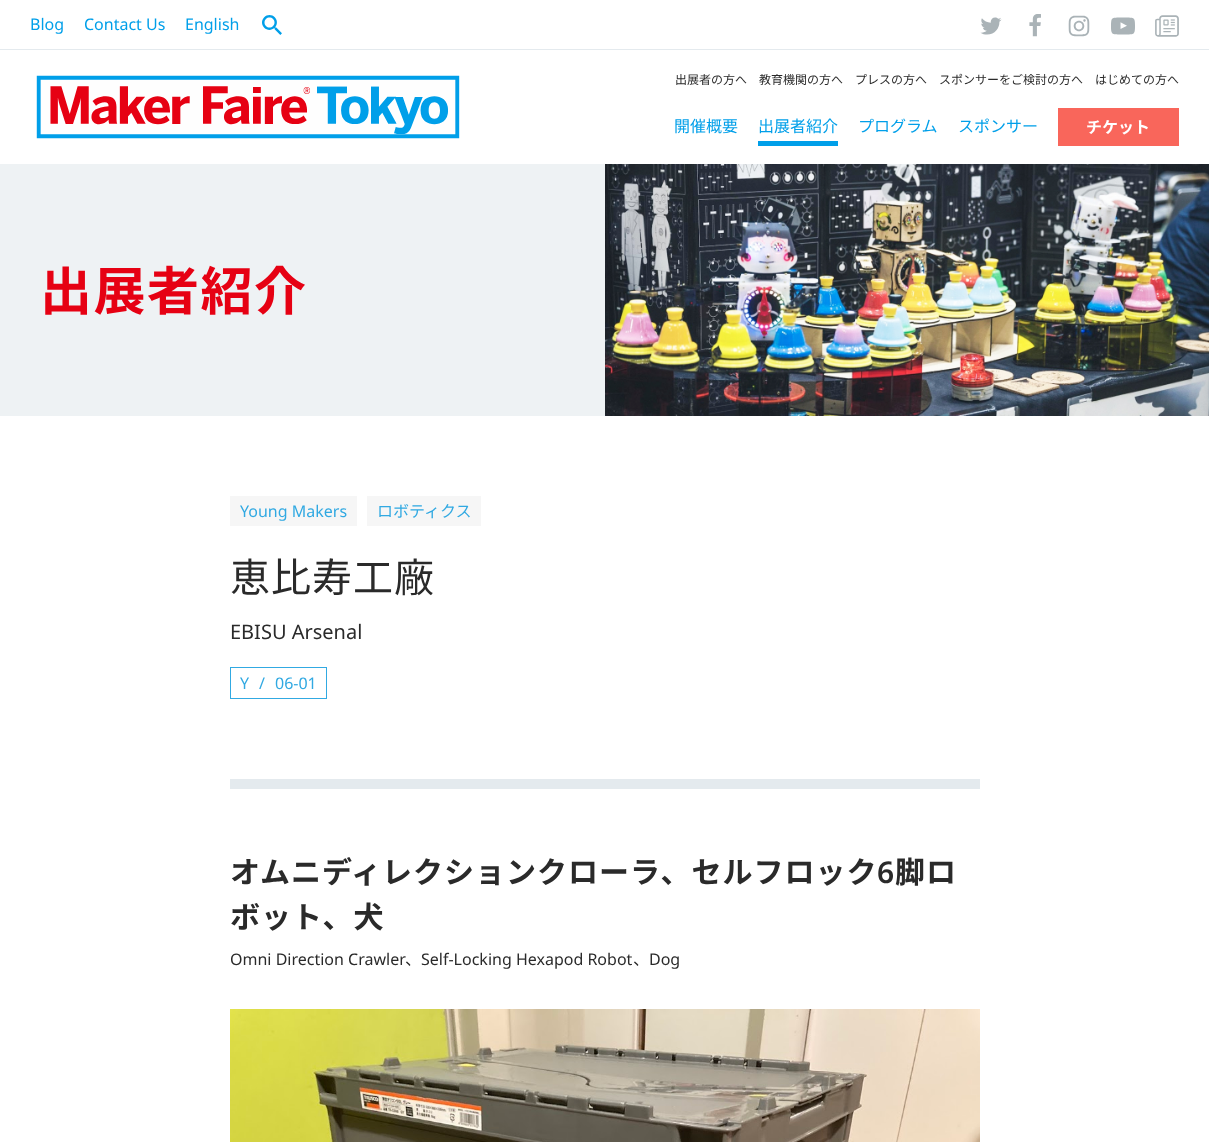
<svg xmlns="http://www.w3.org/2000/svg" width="1209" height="1142">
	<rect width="100%" height="100%" fill="#FFFFFF" />
	<rect x="0" y="49" width="1209" height="1" fill="#E4EAEE" />
	<g font-family="Noto Sans" font-size="16" fill="#009FE9">
		<text x="30" y="30">Blog</text>
		<text x="84" y="30">Contact Us</text>
		<text x="185" y="30">English</text>
	</g>
	<image x="262" y="15" width="20" height="20" href="assets/img1.png" />
	<image x="980" y="17" width="22" height="18" href="assets/img2.png" />
	<image x="1029" y="14" width="12" height="23" href="assets/img3.png" />
	<image x="1068" y="15" width="22" height="22" href="assets/img4.png" />
	<image x="1111" y="17" width="24" height="18" href="assets/img5.png" />
	<image x="1155" y="15" width="24" height="22" href="assets/img6.png" />
	<image x="36" y="75" width="424" height="64" href="assets/img7.png" />
	<g font-family="Noto Sans CJK JP" font-size="12" fill="#2A2A2A">
		<text x="675" y="84">出展者の方へ</text>
		<text x="759" y="84">教育機関の方へ</text>
		<text x="855" y="84">プレスの方へ</text>
		<text x="939" y="84">スポンサーをご検討の方へ</text>
		<text x="1095" y="84">はじめての方へ</text>
	</g>
	<g font-family="Noto Sans CJK JP" font-size="16" fill="#009FE9">
		<text x="674" y="132">開催概要</text>
		<text x="758" y="132">出展者紹介</text>
	</g>
	<rect x="758" y="141" width="80" height="5" fill="#009FE9" />
	<g font-family="Noto Sans CJK JP" font-size="16" fill="#009FE9">
		<text x="858" y="132">プログラム</text>
		<text x="958" y="132">スポンサー</text>
	</g>
	<rect x="1058" y="108" width="121" height="38" fill="#F9665B" />
	<text x="1086" y="133" font-family="Noto Sans CJK JP" font-size="16" font-weight="700" fill="#FFFFFF">チケット</text>
	<rect x="0" y="164" width="605" height="252" fill="#EEF2F4" />
	<image x="605" y="164" width="604" height="252" href="assets/img8.png" />
	<text x="40" y="310" font-family="Noto Sans CJK JP" font-size="52" font-weight="700" letter-spacing="1.5" fill="#E60113">出展者紹介</text>
	<rect x="230" y="496" width="127" height="30" fill="#F6F6F6" />
	<text x="240" y="517" font-family="Noto Sans" font-size="16" fill="#31A9E2">Young Makers</text>
	<rect x="367" y="496" width="114" height="30" fill="#F6F6F6" />
	<text x="377" y="517" font-family="Noto Sans CJK JP" font-size="16" fill="#31A9E2">ロボティクス</text>
	<text x="230" y="592" font-family="Noto Sans CJK JP" font-size="40" letter-spacing="1" fill="#2A2A2A">恵比寿工廠</text>
	<text x="230" y="639" font-family="Noto Sans" font-size="20" fill="#2A2A2A">EBISU Arsenal</text>
	<rect x="230.5" y="667.5" width="96" height="31" fill="none" stroke="#31A9E2" />
	<g font-family="Noto Sans" font-size="16" fill="#31A9E2">
		<text x="240" y="689">Y</text>
		<text x="259" y="689">/</text>
		<text x="275" y="689">06-01</text>
	</g>
	<rect x="230" y="779" width="750" height="10" fill="#E4EAEE" />
	<text x="230" y="883" font-family="Noto Sans CJK JP" font-size="30" font-weight="700" letter-spacing="1" fill="#2A2A2A">オムニディレクションクローラ、セルフロック</text>
	<text x="877" y="883" font-family="Noto Sans" font-size="30" font-weight="600" letter-spacing="1" fill="#2A2A2A">6</text>
	<g font-family="Noto Sans CJK JP" font-size="30" font-weight="700" letter-spacing="1" fill="#2A2A2A">
		<text x="895" y="883">脚ロ</text>
		<text x="230" y="928">ボット、犬</text>
	</g>
	<text x="230" y="965" font-family="Noto Sans" font-size="16" fill="#2A2A2A">Omni Direction Crawler</text>
	<text x="405" y="965" font-family="Noto Sans CJK JP" font-size="16" fill="#2A2A2A">、</text>
	<text x="421" y="965" font-family="Noto Sans" font-size="16" fill="#2A2A2A">Self-Locking Hexapod Robot</text>
	<text x="633" y="965" font-family="Noto Sans CJK JP" font-size="16" fill="#2A2A2A">、</text>
	<text x="649" y="965" font-family="Noto Sans" font-size="16" fill="#2A2A2A">Dog</text>
	<image x="230" y="1009" width="750" height="133" href="assets/img9.png" />
</svg>
